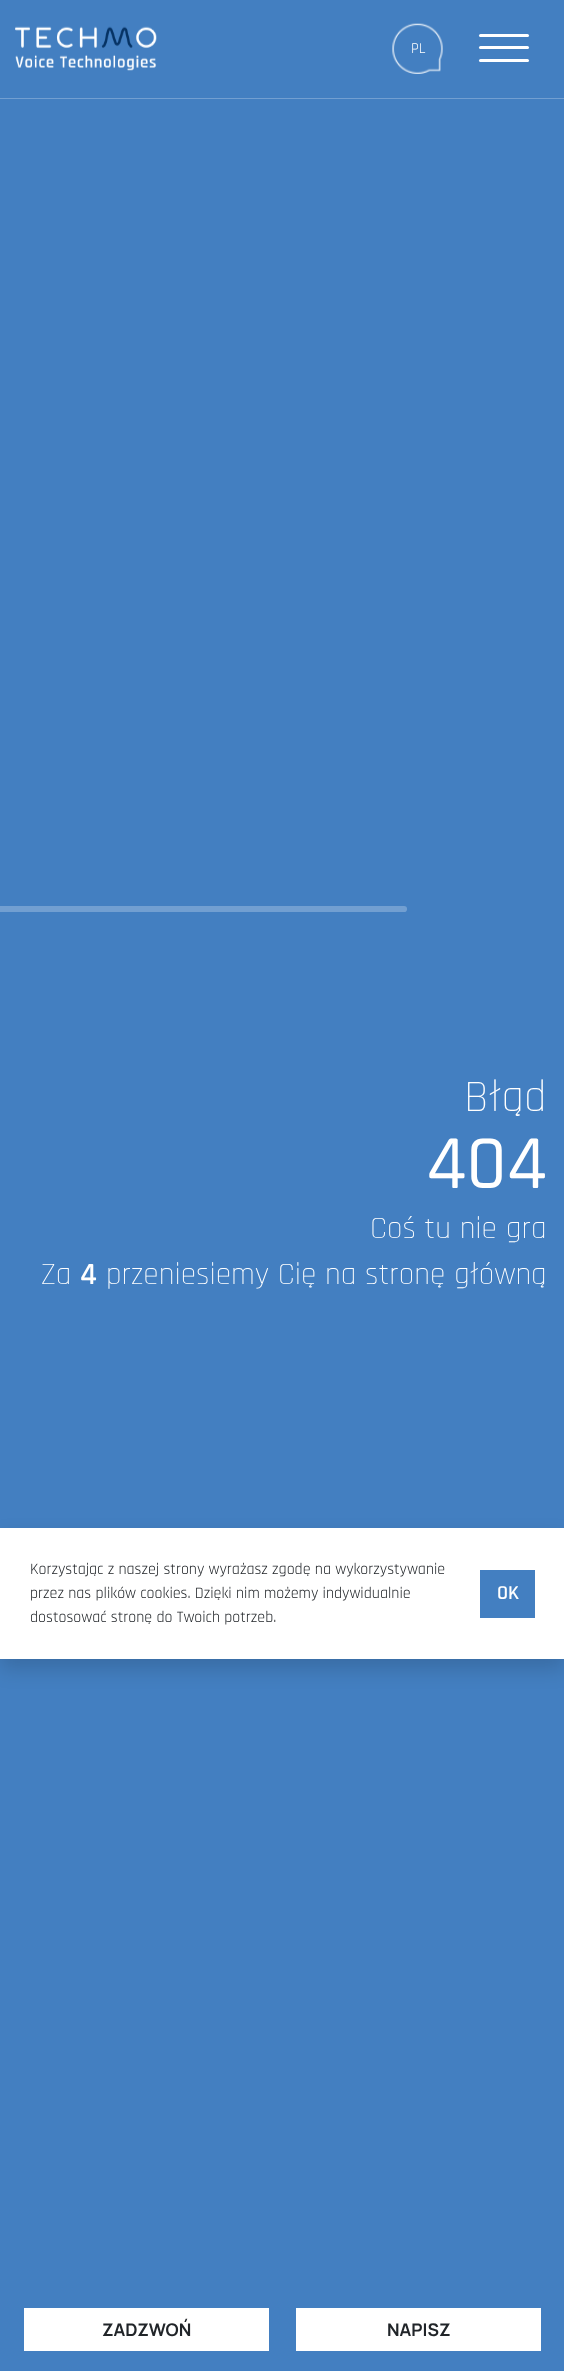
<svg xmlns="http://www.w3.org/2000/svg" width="564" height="2371">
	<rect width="100%" height="100%" fill="#437FC1" />
	<rect x="0" y="98" width="564" height="1" fill="#729FD1" />
	<image x="15" y="26" width="142" height="45" href="assets/img1.png" />
	<image x="392" y="23" width="51" height="51" href="assets/img2.png" />
	<text x="411" y="53" font-family="Rajdhani" font-size="15" fill="#FFFFFF">PL</text>
	<rect x="479" y="34" width="50" height="3" rx="1.5" fill="#FFFFFF" />
	<rect x="479" y="46" width="50" height="3" rx="1.5" fill="#FFFFFF" />
	<rect x="479" y="59" width="50" height="3" rx="1.5" fill="#FFFFFF" />
	<path d="M0 909H404" fill="none" stroke="#729FD1" stroke-width="6.2" stroke-linecap="round" stroke-linejoin="round" />
	<text x="464" y="1111" font-family="Rajdhani" font-size="45" font-weight="300" fill="#FFFFFF">Błąd</text>
	<text x="426" y="1188" font-family="Rajdhani" font-size="77" font-weight="500" fill="#FFFFFF">404</text>
	<g font-family="Rajdhani" font-size="31.25" font-weight="300" fill="#FFFFFF">
		<text x="370" y="1238">Coś tu nie gra</text>
		<text x="41" y="1284">Za</text>
	</g>
	<text x="80" y="1284" font-family="Rajdhani" font-size="31.25" font-weight="600" fill="#FFFFFF">4</text>
	<text x="106" y="1284" font-family="Rajdhani" font-size="31.25" font-weight="300" fill="#FFFFFF">przeniesiemy Cię na stronę główną</text>
	<rect x="0" y="1538" width="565" height="131" fill="#000000" fill-opacity="0.15" filter="blur(10px)" />
	<rect x="0" y="1528" width="564" height="131" fill="#FFFFFF" />
	<g font-family="Rajdhani" font-size="16" fill="#212529">
		<text x="30" y="1574">Korzystając z naszej strony wyrażasz zgodę na wykorzystywanie</text>
		<text x="30" y="1598">przez nas plików cookies. Dzięki nim możemy indywidualnie</text>
		<text x="30" y="1622">dostosować stronę do Twoich potrzeb.</text>
	</g>
	<rect x="480" y="1570" width="55" height="48" fill="#437FC1" />
	<text x="497" y="1599" font-family="Rajdhani" font-size="20" font-weight="600" fill="#FFFFFF">OK</text>
	<rect x="24" y="2308" width="245" height="43" fill="#FFFFFF" />
	<text x="102" y="2336" font-family="Manrope" font-size="17.5" font-weight="700" fill="#212529">ZADZWOŃ</text>
	<rect x="296" y="2308" width="245" height="43" fill="#FFFFFF" />
	<text x="387" y="2336" font-family="Manrope" font-size="17.5" font-weight="700" fill="#212529">NAPISZ</text>
</svg>
